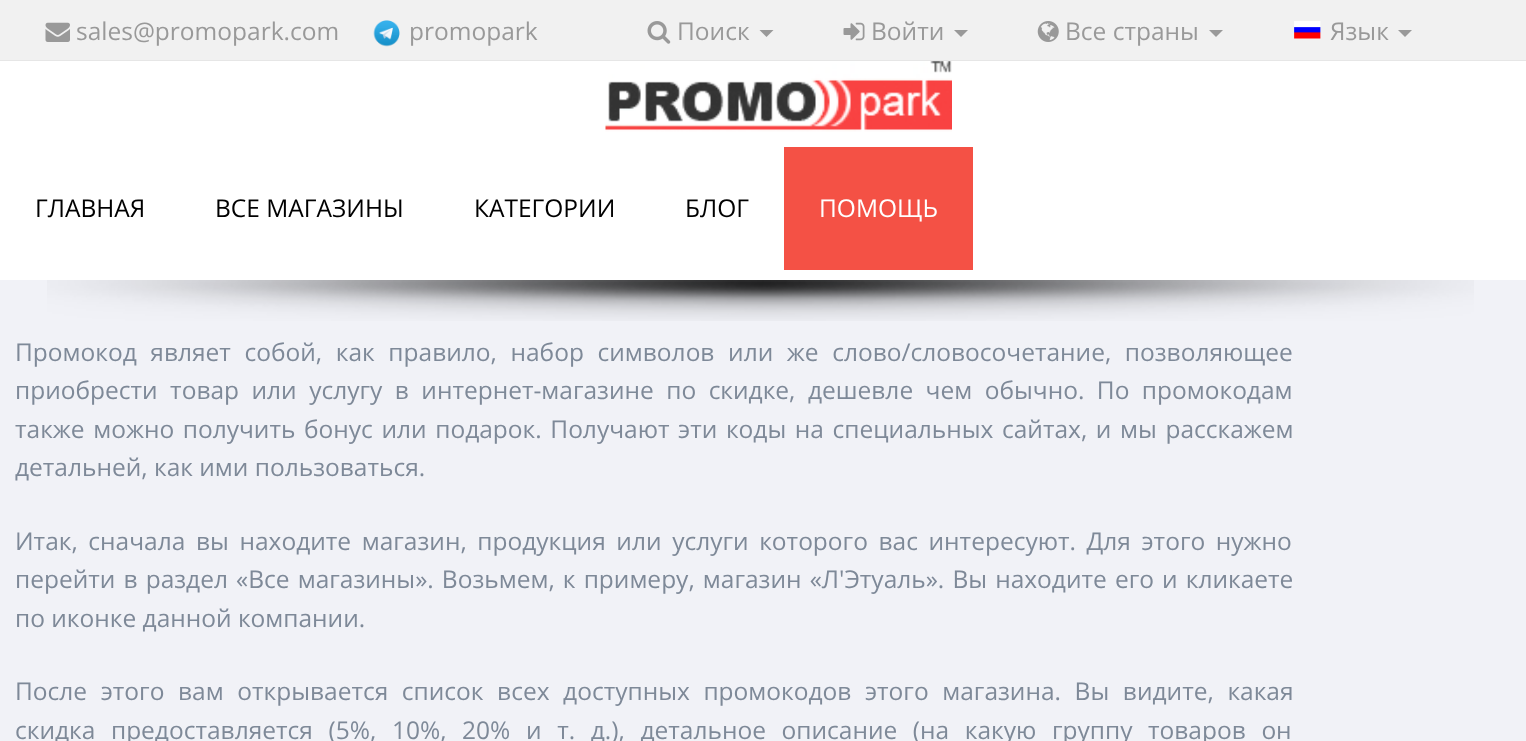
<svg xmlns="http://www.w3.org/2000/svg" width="1526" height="741">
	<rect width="100%" height="100%" fill="#F1F2F7" />
	<rect x="0" y="0" width="1526" height="60" fill="#F1F1F1" />
	<rect x="0" y="60" width="1526" height="1" fill="#E6E6E6" />
	<image x="45" y="22" width="25" height="20" href="assets/img1.png" />
	<text x="76" y="40" font-family="Open Sans" font-size="24.5" fill="#999999">sales@promopark.com</text>
	<image x="373" y="20" width="27" height="27" href="assets/img2.png" />
	<text x="409" y="40" font-family="Open Sans" font-size="24.5" fill="#999999">promopark</text>
	<image x="647" y="21" width="24" height="23" href="assets/img3.png" />
	<text x="677" y="40" font-family="Open Sans" font-size="24.5" fill="#999999">Поиск</text>
	<path d="M759.5 30H773.5L766.5 37Z" fill="#999999" />
	<image x="843" y="22" width="22" height="19" href="assets/img4.png" />
	<text x="871" y="40" font-family="Open Sans" font-size="24.5" fill="#999999">Войти</text>
	<path d="M954 30H968L961 37Z" fill="#999999" />
	<image x="1037" y="21" width="22" height="21" href="assets/img5.png" />
	<text x="1065" y="40" font-family="Open Sans" font-size="24.5" fill="#999999">Все страны</text>
	<path d="M1209 30H1223L1216 37Z" fill="#999999" />
	<image x="1294" y="21" width="27" height="18" href="assets/img6.png" />
	<text x="1330" y="40" font-family="Open Sans" font-size="24.5" fill="#999999">Язык</text>
	<path d="M1398 30H1412L1405 37Z" fill="#999999" />
	<rect x="0" y="61" width="1526" height="219" fill="#FFFFFF" />
	<image x="605" y="61" width="347" height="71" href="assets/img7.png" />
	<g font-family="Open Sans" font-size="24.5" fill="#000000">
		<text x="35" y="217">ГЛАВНАЯ</text>
		<text x="215" y="217">ВСЕ МАГАЗИНЫ</text>
		<text x="474" y="217">КАТЕГОРИИ</text>
		<text x="685" y="217">БЛОГ</text>
	</g>
	<rect x="784" y="147" width="189" height="123" fill="#F45145" />
	<text x="819" y="217" font-family="Open Sans" font-size="24.5" fill="#FFFFFF">ПОМОЩЬ</text>
	<image x="47" y="280" width="1427" height="41" href="assets/img8.png" />
	<g font-family="Open Sans" font-size="24.5" fill="#7E8998">
		<text x="15" y="361" word-spacing="7.25">Промокод являет собой, как правило, набор символов или же слово/словосочетание, позволяющее</text>
		<text x="15" y="399" word-spacing="6.1">приобрести товар или услугу в интернет-магазине по скидке, дешевле чем обычно. По промокодам</text>
		<text x="15" y="438" word-spacing="2.25">также можно получить бонус или подарок. Получают эти коды на специальных сайтах, и мы расскажем</text>
		<text x="15" y="476">детальней, как ими пользоваться.</text>
		<text x="15" y="550" word-spacing="4.25">Итак, сначала вы находите магазин, продукция или услуги которого вас интересуют. Для этого нужно</text>
		<text x="15" y="588" word-spacing="1.75">перейти в раздел «Все магазины». Возьмем, к примеру, магазин «Л'Этуаль». Вы находите его и кликаете</text>
		<text x="15" y="627">по иконке данной компании.</text>
		<text x="15" y="700" word-spacing="7.25">После этого вам открывается список всех доступных промокодов этого магазина. Вы видите, какая</text>
		<text x="15" y="739" word-spacing="9.25">скидка предоставляется (5%, 10%, 20% и т. д.), детальное описание (на какую группу товаров он</text>
	</g>
</svg>
